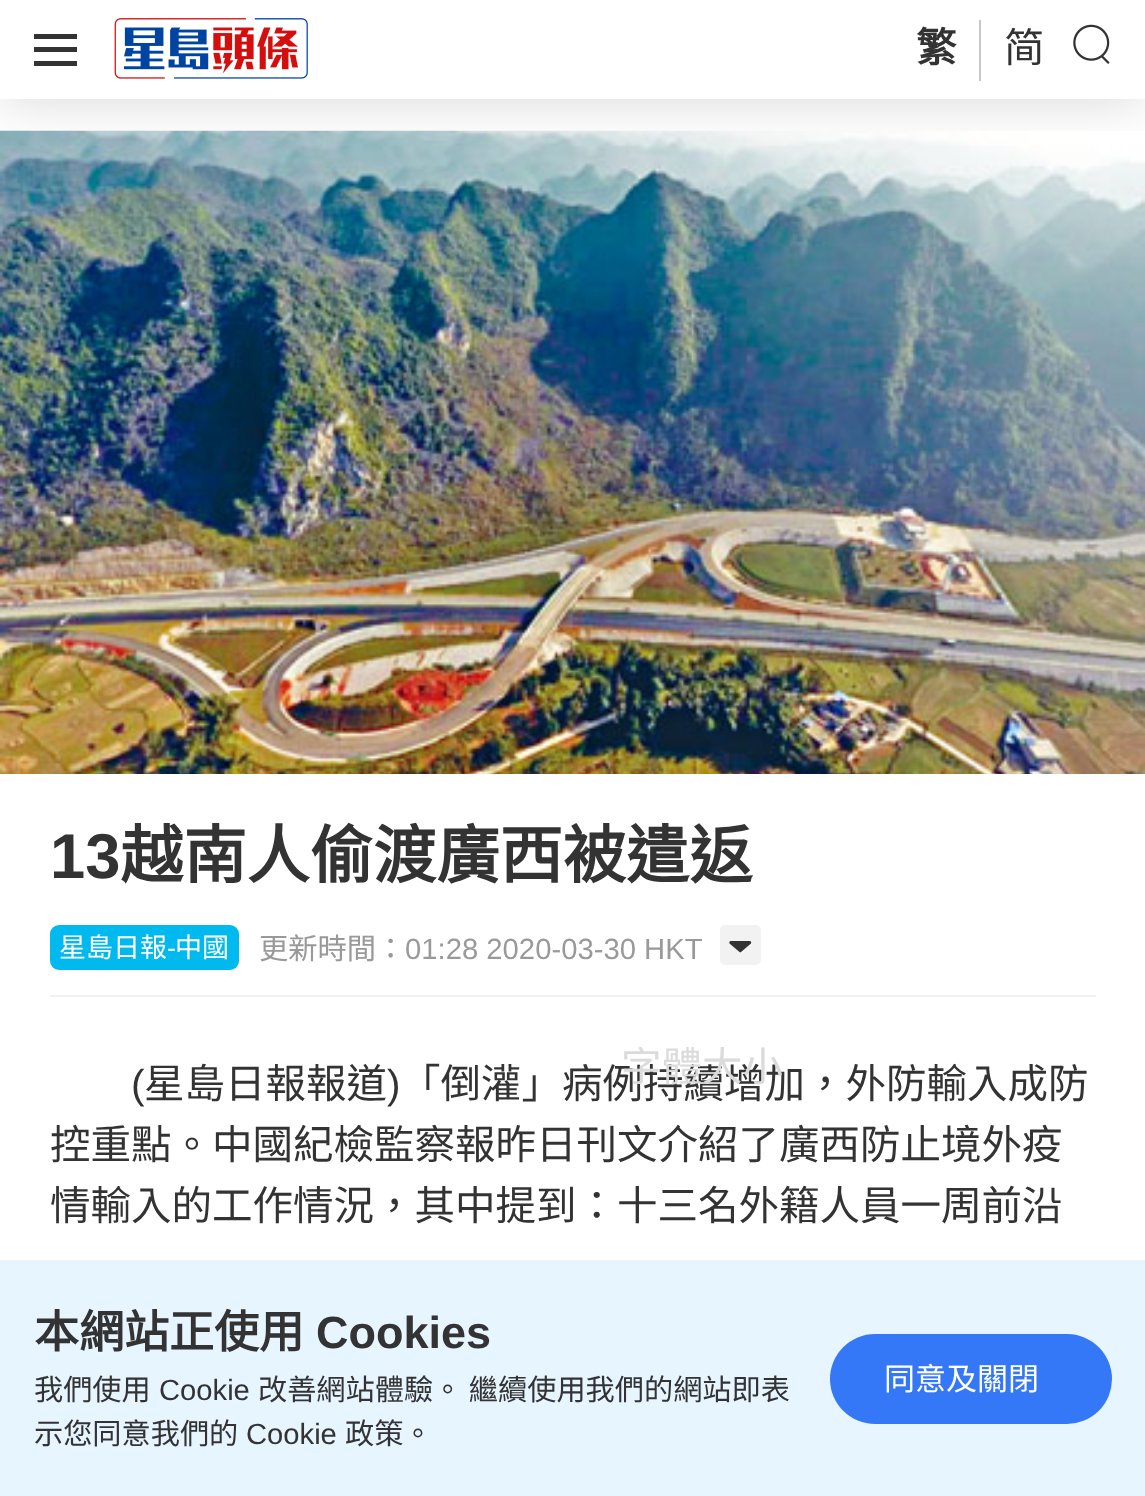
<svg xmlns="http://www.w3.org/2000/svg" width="1145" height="1496">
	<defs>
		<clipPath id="clip1"><rect x="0" y="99" width="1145" height="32" /></clipPath>
	</defs>
	<rect width="100%" height="100%" fill="#FFFFFF" />
	<image x="0" y="130" width="1145" height="644" href="assets/img3.png" />
	<g clip-path="url(#clip1)">
		<rect x="0" y="2" width="1145" height="99" fill="#000000" fill-opacity="0.15" filter="blur(27px)" />
	</g>
	<rect x="34" y="34" width="43" height="5" fill="#333333" />
	<rect x="34" y="47" width="43" height="5" fill="#333333" />
	<rect x="34" y="61" width="43" height="5" fill="#333333" />
	<image x="114" y="18" width="194" height="61" href="assets/img1.png" />
	<rect x="979" y="20" width="2" height="61" fill="#C7C7C7" />
	<text x="916" y="62" font-family="Noto Sans CJK HK" font-size="40.5" font-weight="700" fill="#333333">繁</text>
	<text x="1004" y="62" font-family="Noto Sans CJK HK" font-size="40.5" fill="#333333">简</text>
	<image x="1073" y="24" width="37" height="40" href="assets/img2.png" />
	<text x="50" y="878" font-family="Liberation Sans" font-size="63.25" font-weight="700" fill="#333333">13</text>
	<text x="120" y="878" font-family="Noto Sans CJK HK" font-size="63.25" font-weight="700" fill="#333333">越南人偷渡廣西被遣返</text>
	<rect x="50" y="995" width="1046" height="2" fill="#F2F2F2" />
	<rect x="50" y="925" width="189" height="45" rx="9" fill="#00B9EF" />
	<text x="59" y="957" font-family="Noto Sans CJK HK" font-size="27" fill="#FFFFFF">星島日報</text>
	<text x="167" y="957" font-family="Liberation Sans" font-size="27" fill="#FFFFFF">-</text>
	<text x="175" y="957" font-family="Noto Sans CJK HK" font-size="27" fill="#FFFFFF">中國</text>
	<text x="259" y="959" font-family="Noto Sans CJK HK" font-size="29.25" fill="#999999">更新時間：</text>
	<text x="405" y="959" font-family="Liberation Sans" font-size="29.25" fill="#999999">01:28 2020-03-30 HKT</text>
	<rect x="720" y="925" width="41" height="40" rx="5" fill="#F2F2F2" />
	<path d="M739.5 952C740 952.5 740.5 952.5 741 952L751 943.5C751.5 942.5 751 941 750 941H730.5C729.5 941 729 942.5 729.5 943.5Z" fill="#333333" />
	<text x="400" y="1098" font-family="Noto Sans CJK HK" font-size="40.5" fill="#333333">「倒灌」病例持續增加，外防輸入成防</text>
	<text x="621" y="1081" font-family="Noto Sans CJK HK" font-size="40.5" fill="#DBDBDB">字體大小</text>
	<text x="131" y="1098" font-family="Liberation Sans" font-size="40.5" fill="#333333">(</text>
	<text x="144" y="1098" font-family="Noto Sans CJK HK" font-size="40.5" fill="#333333">星島日報報道</text>
	<text x="387" y="1098" font-family="Liberation Sans" font-size="40.5" fill="#333333">)</text>
	<g font-family="Noto Sans CJK HK" font-size="40.5" fill="#333333">
		<text x="50" y="1159">控重點。中國紀檢監察報昨日刊文介紹了廣西防止境外疫</text>
		<text x="50" y="1220">情輸入的工作情況，其中提到：十三名外籍人員一周前沿</text>
	</g>
	<rect x="0" y="1260" width="1145" height="236" fill="#E6F5FF" />
	<text x="34" y="1348" font-family="Noto Sans CJK HK" font-size="45" font-weight="700" fill="#333333">本網站正使用</text>
	<text x="316" y="1348" font-family="Liberation Sans" font-size="45" font-weight="700" fill="#333333">Cookies</text>
	<text x="34" y="1400" font-family="Noto Sans CJK HK" font-size="29.2" fill="#333333">我們使用</text>
	<text x="159" y="1400" font-family="Liberation Sans" font-size="29.2" fill="#333333">Cookie</text>
	<g font-family="Noto Sans CJK HK" font-size="29.2" fill="#333333">
		<text x="258" y="1400">改善網站體驗。 繼續使用我們的網站即表</text>
		<text x="34" y="1444">示您同意我們的</text>
	</g>
	<text x="246" y="1444" font-family="Liberation Sans" font-size="29.2" fill="#333333">Cookie</text>
	<text x="345" y="1444" font-family="Noto Sans CJK HK" font-size="29.2" fill="#333333">政策。</text>
	<rect x="830" y="1334" width="282" height="90" rx="45" fill="#3478F7" />
	<text x="884" y="1390" font-family="Noto Sans CJK HK" font-size="31" fill="#FFFFFF">同意及關閉</text>
</svg>
